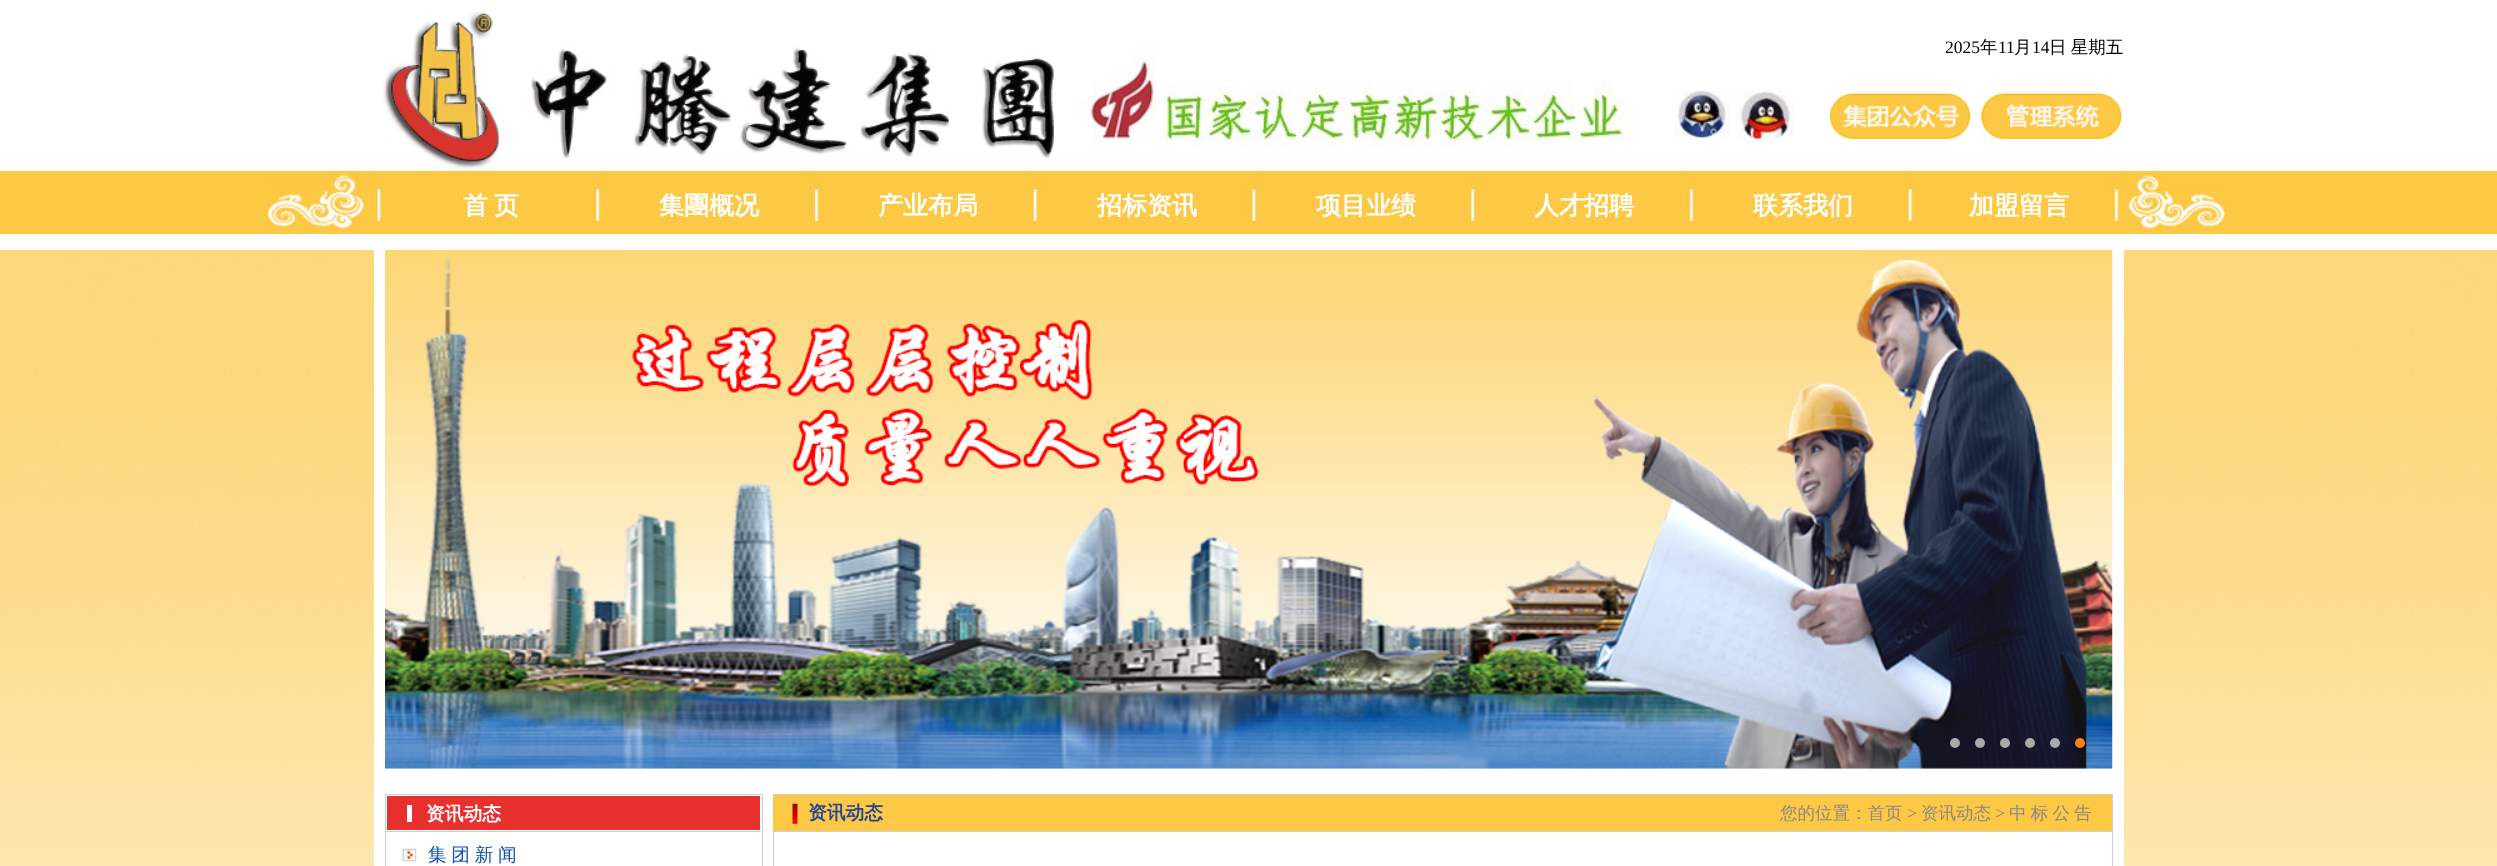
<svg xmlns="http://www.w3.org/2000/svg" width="2497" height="866">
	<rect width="100%" height="100%" fill="#FFFFFF" />
	<image x="0" y="249" width="2497" height="617" href="assets/img1.png" />
	<image x="383" y="11" width="1251" height="159" href="assets/img2.png" />
	<text x="1945" y="53" font-family="Liberation Serif" font-size="17.5" fill="#000000">2025</text>
	<text x="1980" y="53" font-family="WenQuanYi Zen Hei" font-size="17.5" font-weight="500" fill="#000000">年</text>
	<text x="1998" y="53" font-family="Liberation Serif" font-size="17.5" fill="#000000">11</text>
	<text x="2014" y="53" font-family="WenQuanYi Zen Hei" font-size="17.5" font-weight="500" fill="#000000">月</text>
	<text x="2032" y="53" font-family="Liberation Serif" font-size="17.5" fill="#000000">14</text>
	<text x="2049" y="53" word-spacing="-1" font-family="WenQuanYi Zen Hei" font-size="17.5" font-weight="500" fill="#000000">日 星期五</text>
	<image x="1829" y="93" width="142" height="46" href="assets/img3.png" />
	<image x="1981" y="93" width="141" height="46" href="assets/img4.png" />
	<image x="1674" y="91" width="56" height="49" href="assets/img5.png" />
	<image x="1736" y="91" width="58" height="51" href="assets/img6.png" />
	<rect x="0" y="171" width="2497" height="63" fill="#FDC844" />
	<image x="267" y="175" width="1959" height="54" href="assets/img7.png" />
	<g font-family="WenQuanYi Zen Hei" font-size="25" font-weight="700" fill="#FFFFFF">
		<text x="463" y="214">首</text>
		<text x="494" y="214">页</text>
		<text x="659" y="214">集團概况</text>
		<text x="878" y="214">产业布局</text>
		<text x="1097" y="214">招标资讯</text>
		<text x="1316" y="214">项目业绩</text>
		<text x="1534" y="214">人才招聘</text>
		<text x="1753" y="214">联系我们</text>
		<text x="1969" y="214">加盟留言</text>
	</g>
	<rect x="374" y="250" width="1750" height="616" fill="#FFFFFF" />
	<image x="385" y="250" width="1728" height="519" href="assets/img8.png" />
	<circle cx="1955" cy="743" r="5" fill="#A9AAAA" />
	<circle cx="1980" cy="743" r="5" fill="#A9AAAA" />
	<circle cx="2005" cy="743" r="5" fill="#A9AAAA" />
	<circle cx="2030" cy="743" r="5" fill="#A9AAAA" />
	<circle cx="2055" cy="743" r="5" fill="#A9AAAA" />
	<circle cx="2080" cy="743" r="5" fill="#FF7D15" />
	<rect x="385.5" y="794.5" width="377" height="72" fill="none" stroke="#CCD0D3" />
	<rect x="386" y="831" width="375" height="1" fill="#CCD0D3" />
	<rect x="387" y="796" width="373" height="34" fill="#E8302E" />
	<rect x="407" y="805" width="5" height="17" fill="#FFFFFF" />
	<text x="426" y="820" font-family="WenQuanYi Zen Hei" font-size="18.75" font-weight="700" fill="#FFFFFF">资讯动态</text>
	<image x="402" y="848" width="15" height="14" href="assets/img9.png" />
	<text x="428" y="861" word-spacing="-1" font-family="WenQuanYi Zen Hei" font-size="18.75" font-weight="500" fill="#1152AA">集 团 新 闻</text>
	<rect x="773.5" y="794.5" width="1339" height="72" fill="none" stroke="#CCD0D3" />
	<rect x="773" y="795" width="1339" height="37" fill="#FDC844" />
	<rect x="774" y="831" width="1337" height="1" fill="#CCD0D3" />
	<image x="792" y="803" width="6" height="21" href="assets/img10.png" />
	<text x="808" y="819" font-family="WenQuanYi Zen Hei" font-size="18.75" font-weight="700" fill="#1E4699">资讯动态</text>
	<text x="1780" y="819" font-family="WenQuanYi Zen Hei" font-size="17.5" font-weight="500" fill="#888888">您的位置：首页</text>
	<text x="1907" y="819" font-family="Liberation Serif" font-size="17.5" fill="#888888">&gt;</text>
	<text x="1921" y="819" font-family="WenQuanYi Zen Hei" font-size="17.5" font-weight="500" fill="#888888">资讯动态</text>
	<text x="1995" y="819" font-family="Liberation Serif" font-size="17.5" fill="#888888">&gt;</text>
	<text x="2009" y="819" word-spacing="-1" font-family="WenQuanYi Zen Hei" font-size="17.5" font-weight="500" fill="#888888">中 标 公 告</text>
</svg>
